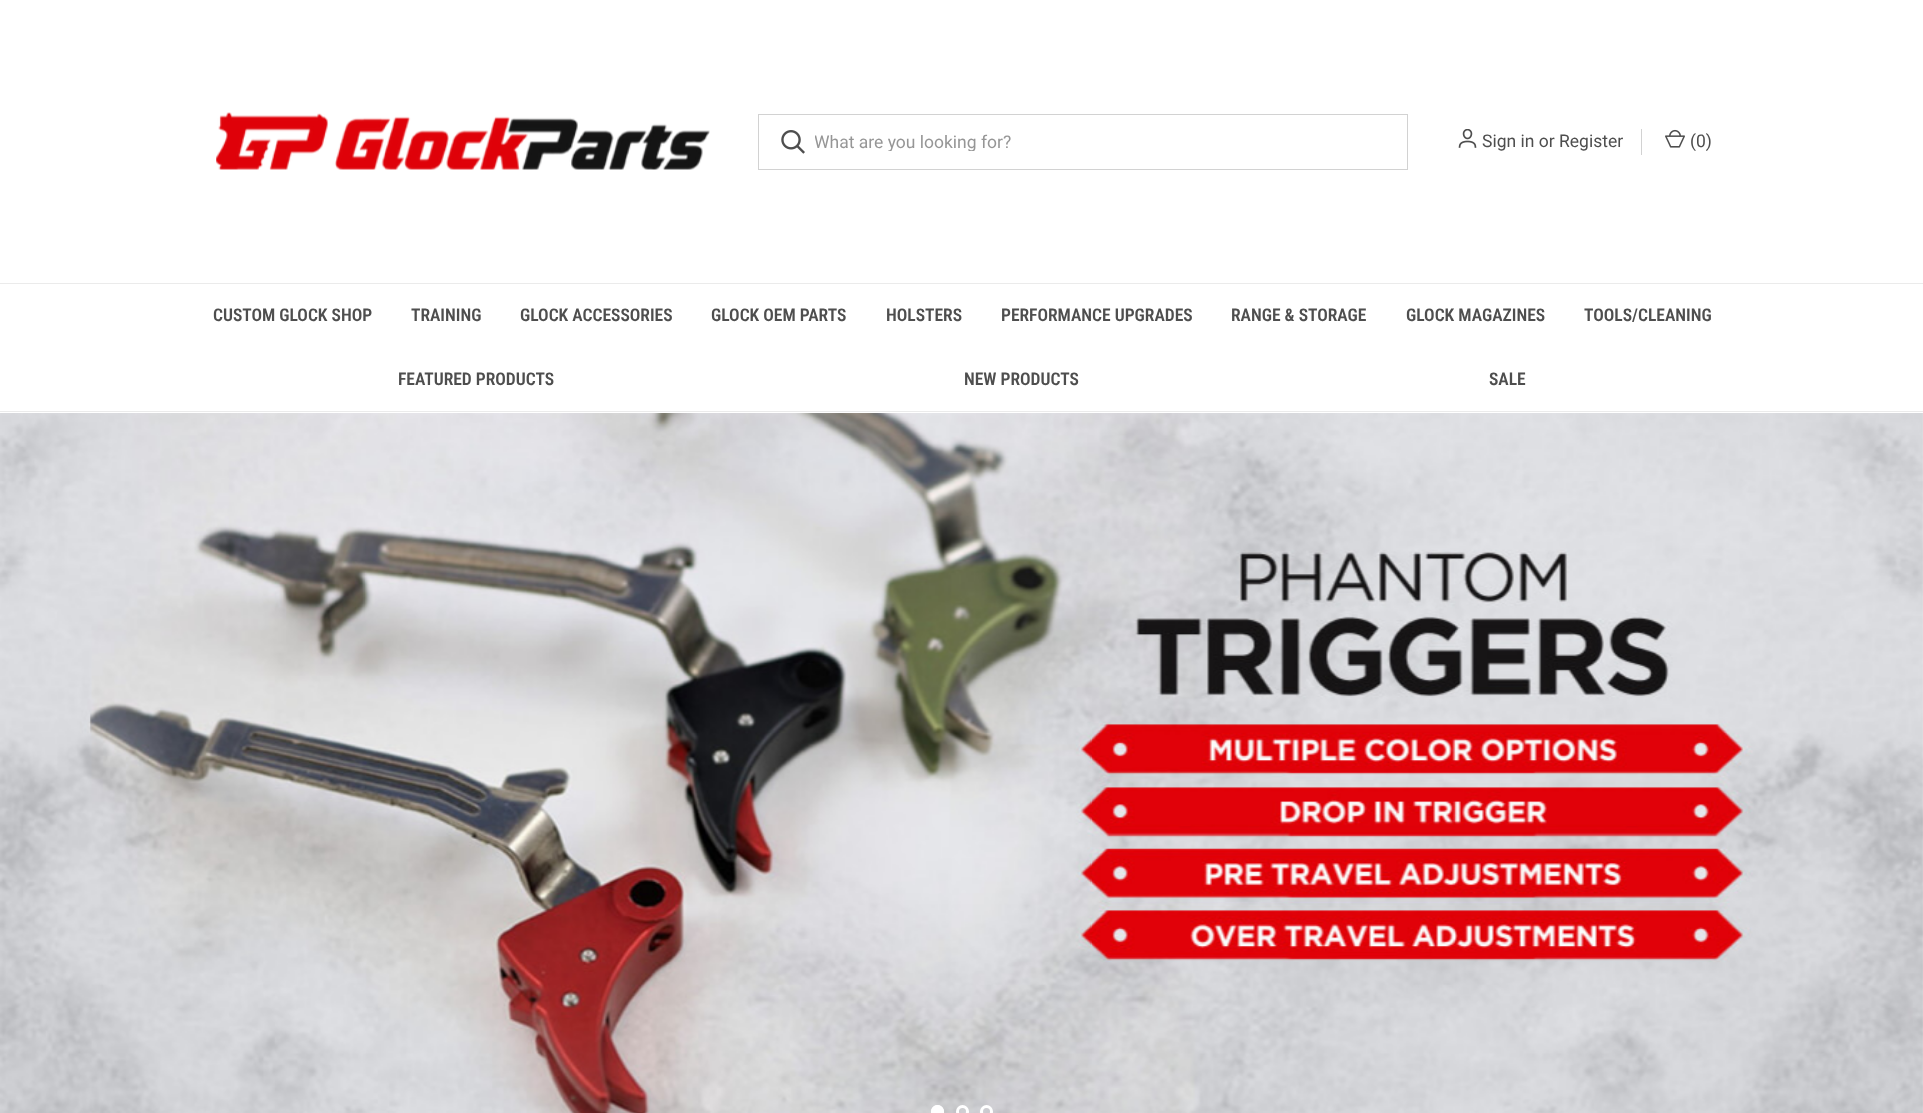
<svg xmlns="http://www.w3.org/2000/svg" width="1923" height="1113">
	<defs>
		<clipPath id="clip1"><rect x="815" y="131" width="574" height="20" /></clipPath>
	</defs>
	<rect width="100%" height="100%" fill="#FFFFFF" />
	<image x="216" y="112" width="494" height="58" href="assets/img1.png" />
	<rect x="758.5" y="114.5" width="649" height="55" fill="none" stroke="#D2D2D2" />
	<image x="781" y="130" width="24" height="24" href="assets/img2.png" />
	<g clip-path="url(#clip1)">
		<text x="814" y="148" font-family="Roboto" font-size="17.5" fill="#969696">What are you looking for?</text>
	</g>
	<image x="1458" y="129" width="19" height="19" href="assets/img3.png" />
	<text x="1482" y="147" font-family="Roboto" font-size="17.5" fill="#4E4E4E">Sign in or Register</text>
	<rect x="1641" y="129" width="1" height="26" fill="#D2D2D2" />
	<image x="1665" y="129" width="20" height="19" href="assets/img4.png" />
	<text x="1690" y="147" font-family="Roboto" font-size="17.5" fill="#4E4E4E">(0)</text>
	<rect x="0" y="283" width="1923" height="1" fill="#EBEBEB" />
	<rect x="0" y="411" width="1923" height="1" fill="#EBEBEB" />
	<g font-family="Roboto Condensed" font-size="17.5" font-weight="600" fill="#4E4E4E">
		<text x="213" y="321">CUSTOM GLOCK SHOP</text>
		<text x="411" y="321">TRAINING</text>
		<text x="520" y="321">GLOCK ACCESSORIES</text>
		<text x="711" y="321">GLOCK OEM PARTS</text>
		<text x="886" y="321">HOLSTERS</text>
		<text x="1001" y="321">PERFORMANCE UPGRADES</text>
		<text x="1231" y="321">RANGE &amp; STORAGE</text>
		<text x="1406" y="321">GLOCK MAGAZINES</text>
		<text x="1584" y="321">TOOLS/CLEANING</text>
		<text x="398" y="385">FEATURED PRODUCTS</text>
		<text x="964" y="385">NEW PRODUCTS</text>
		<text x="1489" y="385">SALE</text>
	</g>
	<image x="0" y="413" width="1923" height="700" href="assets/img5.png" />
	<circle cx="937.5" cy="1111.5" r="5" fill="none" stroke="#FFFFFF" stroke-width="3" />
	<circle cx="937.5" cy="1111.5" r="6.5" fill="#FFFFFF" />
	<circle cx="962.5" cy="1111.5" r="5" fill="none" stroke="#FFFFFF" stroke-width="3" />
	<circle cx="986.5" cy="1111.5" r="5" fill="none" stroke="#FFFFFF" stroke-width="3" />
</svg>
